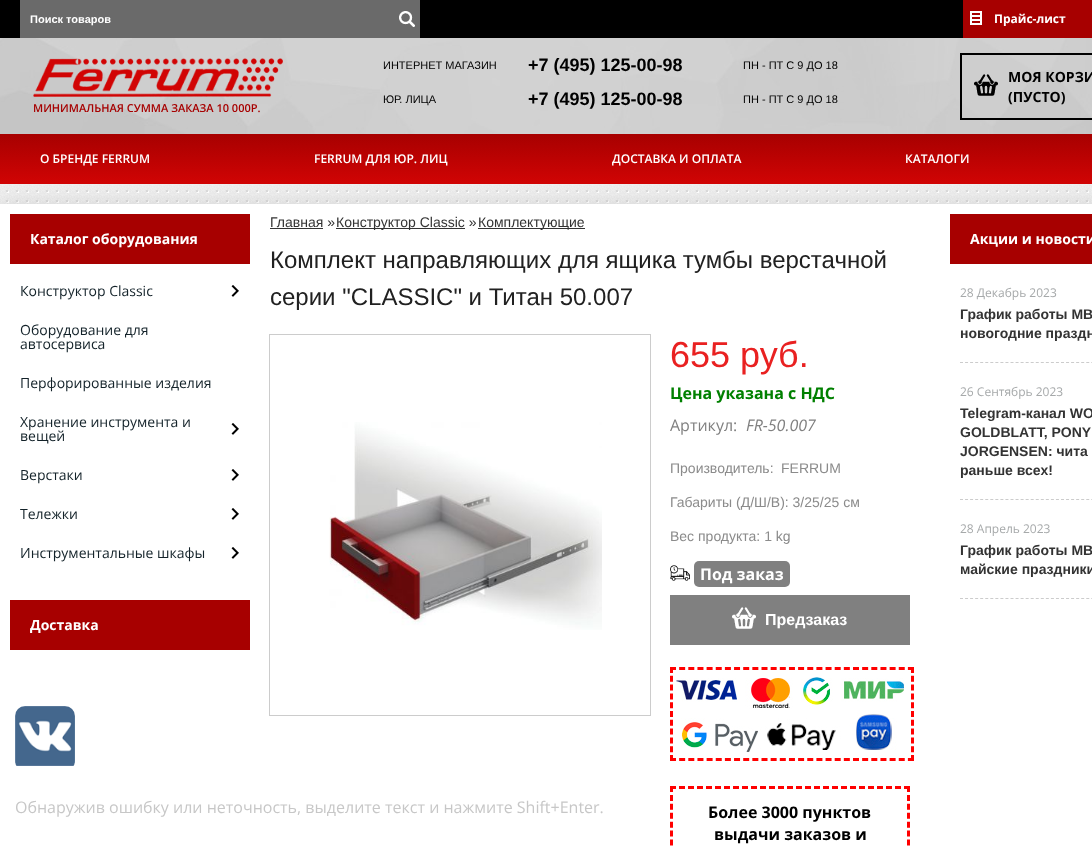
<svg xmlns="http://www.w3.org/2000/svg" width="1092" height="846">
	<defs>
		<linearGradient id="g1" gradientUnits="userSpaceOnUse" x1="620" y1="184" x2="620" y2="134"><stop offset="0" stop-color="#D10404" /><stop offset="1" stop-color="#A70000" /></linearGradient>
	</defs>
	<rect width="100%" height="100%" fill="#FFFFFF" />
	<image x="0" y="184" width="1092" height="20" href="assets/img1.png" />
	<rect x="0" y="0" width="963" height="38" fill="#000000" />
	<rect x="20" y="0" width="400" height="38" fill="#6A6A6A" />
	<text x="30" y="23" font-family="Liberation Sans" font-size="11" font-weight="700" fill="#FFFFFF">Поиск товаров</text>
	<image x="399" y="11" width="16" height="16" href="assets/img2.png" />
	<rect x="963" y="0" width="129" height="38" fill="#A70000" />
	<image x="970" y="11" width="12" height="14" href="assets/img3.png" />
	<text x="994" y="23" font-family="Open Sans" font-size="12" font-weight="700" fill="#FFFFFF">Прайс-лист</text>
	<image x="0" y="38" width="1092" height="96" href="assets/img4.png" />
	<text x="383" y="69" font-family="Liberation Sans" font-size="11" fill="#000000">ИНТЕРНЕТ МАГАЗИН</text>
	<text x="528" y="71" font-family="Liberation Sans" font-size="18" font-weight="700" fill="#000000">+7 (495) 125-00-98</text>
	<g font-family="Liberation Sans" font-size="11" fill="#000000">
		<text x="743" y="69">ПН - ПТ С 9 ДО 18</text>
		<text x="383" y="103">ЮР. ЛИЦА</text>
	</g>
	<text x="528" y="105" font-family="Liberation Sans" font-size="18" font-weight="700" fill="#000000">+7 (495) 125-00-98</text>
	<text x="743" y="103" font-family="Liberation Sans" font-size="11" fill="#000000">ПН - ПТ С 9 ДО 18</text>
	<rect x="961" y="54" width="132" height="65" fill="none" stroke="#000000" stroke-width="2" />
	<image x="974" y="74" width="24" height="22" href="assets/img5.png" />
	<g font-family="Open Sans" font-size="14" font-weight="700" fill="#000000">
		<text x="1008" y="82">МОЯ КОРЗИ</text>
		<text x="1008" y="102">(ПУСТО)</text>
	</g>
	<image x="33" y="58" width="250" height="39" href="assets/img6.png" />
	<text x="33" y="112" font-family="Open Sans" font-size="11" font-weight="600" fill="#A70000">МИНИМАЛЬНАЯ СУММА ЗАКАЗА 10 000Р.</text>
	<rect x="0" y="134" width="1092" height="50" fill="url(#g1)" />
	<g font-family="Open Sans" font-size="12" font-weight="600" fill="#FFFFFF">
		<text x="40" y="163">О БРЕНДЕ FERRUM</text>
		<text x="314" y="163">FERRUM ДЛЯ ЮР. ЛИЦ</text>
		<text x="612" y="163">ДОСТАВКА И ОПЛАТА</text>
		<text x="905" y="163">КАТАЛОГИ</text>
	</g>
	<rect x="0" y="204" width="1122" height="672" fill="#000000" fill-opacity="0.1" filter="blur(10px)" />
	<rect x="0" y="204" width="1092" height="642" fill="#FFFFFF" />
	<rect x="10" y="214" width="240" height="50" fill="#A70000" />
	<text x="30" y="244" font-family="Open Sans" font-size="14" font-weight="700" fill="#FFFFFF">Каталог оборудования</text>
	<text x="20" y="296" font-family="Open Sans" font-size="14" fill="#132229">Конструктор Classic</text>
	<image x="231" y="285" width="8" height="12" href="assets/img7.png" />
	<g font-family="Open Sans" font-size="14" fill="#132229">
		<text x="20" y="335">Оборудование для</text>
		<text x="20" y="349">автосервиса</text>
		<text x="20" y="388">Перфорированные изделия</text>
		<text x="20" y="427">Хранение инструмента и</text>
		<text x="20" y="441">вещей</text>
	</g>
	<image x="231" y="423" width="8" height="12" href="assets/img7.png" />
	<text x="20" y="480" font-family="Open Sans" font-size="14" fill="#132229">Верстаки</text>
	<image x="231" y="469" width="8" height="12" href="assets/img7.png" />
	<text x="20" y="519" font-family="Open Sans" font-size="14" fill="#132229">Тележки</text>
	<image x="231" y="508" width="8" height="12" href="assets/img7.png" />
	<text x="20" y="558" font-family="Open Sans" font-size="14" fill="#132229">Инструментальные шкафы</text>
	<image x="231" y="547" width="8" height="12" href="assets/img7.png" />
	<rect x="10" y="600" width="240" height="50" fill="#A70000" />
	<text x="30" y="630" font-family="Open Sans" font-size="14" font-weight="700" fill="#FFFFFF">Доставка</text>
	<text x="270" y="227" font-family="Liberation Sans" font-size="14" fill="#333333">Главная »</text>
	<rect x="270" y="228" width="53" height="1" fill="#333333" />
	<rect x="336" y="228" width="129" height="1" fill="#333333" />
	<text x="336" y="227" font-family="Liberation Sans" font-size="14" fill="#333333">Конструктор Classic »</text>
	<rect x="478" y="228" width="107" height="1" fill="#333333" />
	<text x="478" y="227" font-family="Liberation Sans" font-size="14" fill="#333333">Комплектующие</text>
	<g font-family="Liberation Sans" font-size="24" fill="#212121">
		<text x="270" y="268">Комплект направляющих для ящика тумбы верстачной</text>
		<text x="270" y="305">серии "CLASSIC" и Титан 50.007</text>
	</g>
	<rect x="269.5" y="334.5" width="381" height="381" fill="none" stroke="#CCCCCC" />
	<image x="329" y="422" width="273" height="208" href="assets/img8.png" />
	<text x="670" y="367" font-family="Liberation Sans" font-size="36" fill="#E92121">655 руб.</text>
	<text x="670" y="399" font-family="Open Sans" font-size="16" font-weight="700" fill="#008000">Цена указана с НДС</text>
	<text x="670" y="431" font-family="Open Sans" font-size="16" fill="#808080">Артикул:</text>
	<text x="746" y="431" font-family="Open Sans" font-size="16" font-style="italic" fill="#808080">FR-50.007</text>
	<g font-family="Liberation Sans" font-size="14" fill="#8B8B8B">
		<text x="670" y="473">Производитель:</text>
		<text x="781" y="473">FERRUM</text>
		<text x="670" y="507">Габариты (Д/Ш/В): 3/25/25 см</text>
		<text x="670" y="541">Вес продукта: 1 kg</text>
	</g>
	<image x="670" y="565" width="20" height="16" href="assets/img9.png" />
	<rect x="694" y="561" width="96" height="26" rx="5" fill="#808080" />
	<text x="700" y="580" font-family="Open Sans" font-size="16" font-weight="700" fill="#FFFFFF">Под заказ</text>
	<rect x="670" y="595" width="240" height="50" fill="#808080" />
	<image x="732" y="607" width="24" height="22" href="assets/img10.png" />
	<text x="765" y="625" font-family="Liberation Sans" font-size="16" font-weight="700" fill="#FFFFFF">Предзаказ</text>
	<path d="M670 668.5H914" fill="none" stroke="#FF0000" stroke-width="3" stroke-dasharray="6 3.15" />
	<path d="M912.5 667V761" fill="none" stroke="#FF0000" stroke-width="3" stroke-dasharray="6 2.8" />
	<path d="M670 759.5H914" fill="none" stroke="#FF0000" stroke-width="3" stroke-dasharray="6 3.15" />
	<path d="M671.5 667V761" fill="none" stroke="#FF0000" stroke-width="3" stroke-dasharray="6 2.8" />
	<image x="674" y="677" width="230" height="75" href="assets/img11.png" />
	<path d="M670 787.5H910" fill="none" stroke="#FF0000" stroke-width="3" stroke-dasharray="6 3" />
	<path d="M908.5 786V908" fill="none" stroke="#FF0000" stroke-width="3" stroke-dasharray="6 2.92" />
	<path d="M671.5 786V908" fill="none" stroke="#FF0000" stroke-width="3" stroke-dasharray="6 2.92" />
	<g font-family="Open Sans" font-size="16" font-weight="700" fill="#000000">
		<text x="708" y="818">Более 3000 пунктов</text>
		<text x="714" y="840">выдачи заказов и</text>
	</g>
	<rect x="950" y="214" width="142" height="50" fill="#A70000" />
	<text x="970" y="244" font-family="Open Sans" font-size="14" font-weight="700" fill="#FFFFFF">Акции и новости</text>
	<path d="M960 362.5H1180" fill="none" stroke="#CCCCCC" stroke-dasharray="3 2.05" />
	<text x="960" y="297" font-family="Open Sans" font-size="12" fill="#A6A9AA">28 Декабрь 2023</text>
	<g font-family="Liberation Sans" font-size="14" font-weight="700" fill="#333333">
		<text x="960" y="319">График работы МВ</text>
		<text x="960" y="338">новогодние праздн</text>
	</g>
	<path d="M960 499.5H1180" fill="none" stroke="#CCCCCC" stroke-dasharray="3 2.05" />
	<text x="960" y="396" font-family="Open Sans" font-size="12" fill="#A6A9AA">26 Сентябрь 2023</text>
	<g font-family="Liberation Sans" font-size="14" font-weight="700" fill="#333333">
		<text x="960" y="418">Telegram-канал WO</text>
		<text x="960" y="437">GOLDBLATT, PONY</text>
		<text x="960" y="456">JORGENSEN: чита</text>
		<text x="960" y="475">раньше всех!</text>
	</g>
	<path d="M960 598.5H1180" fill="none" stroke="#CCCCCC" stroke-dasharray="3 2.05" />
	<text x="960" y="533" font-family="Open Sans" font-size="12" fill="#A6A9AA">28 Апрель 2023</text>
	<g font-family="Liberation Sans" font-size="14" font-weight="700" fill="#333333">
		<text x="960" y="555">График работы МВ</text>
		<text x="960" y="574">майские праздники</text>
	</g>
	<image x="15" y="706" width="60" height="60" href="assets/img12.png" />
	<text x="15" y="813" font-family="Open Sans" font-size="16" fill="#C7C7C7">Обнаружив ошибку или неточность, выделите текст и нажмите Shift+Enter.</text>
</svg>
